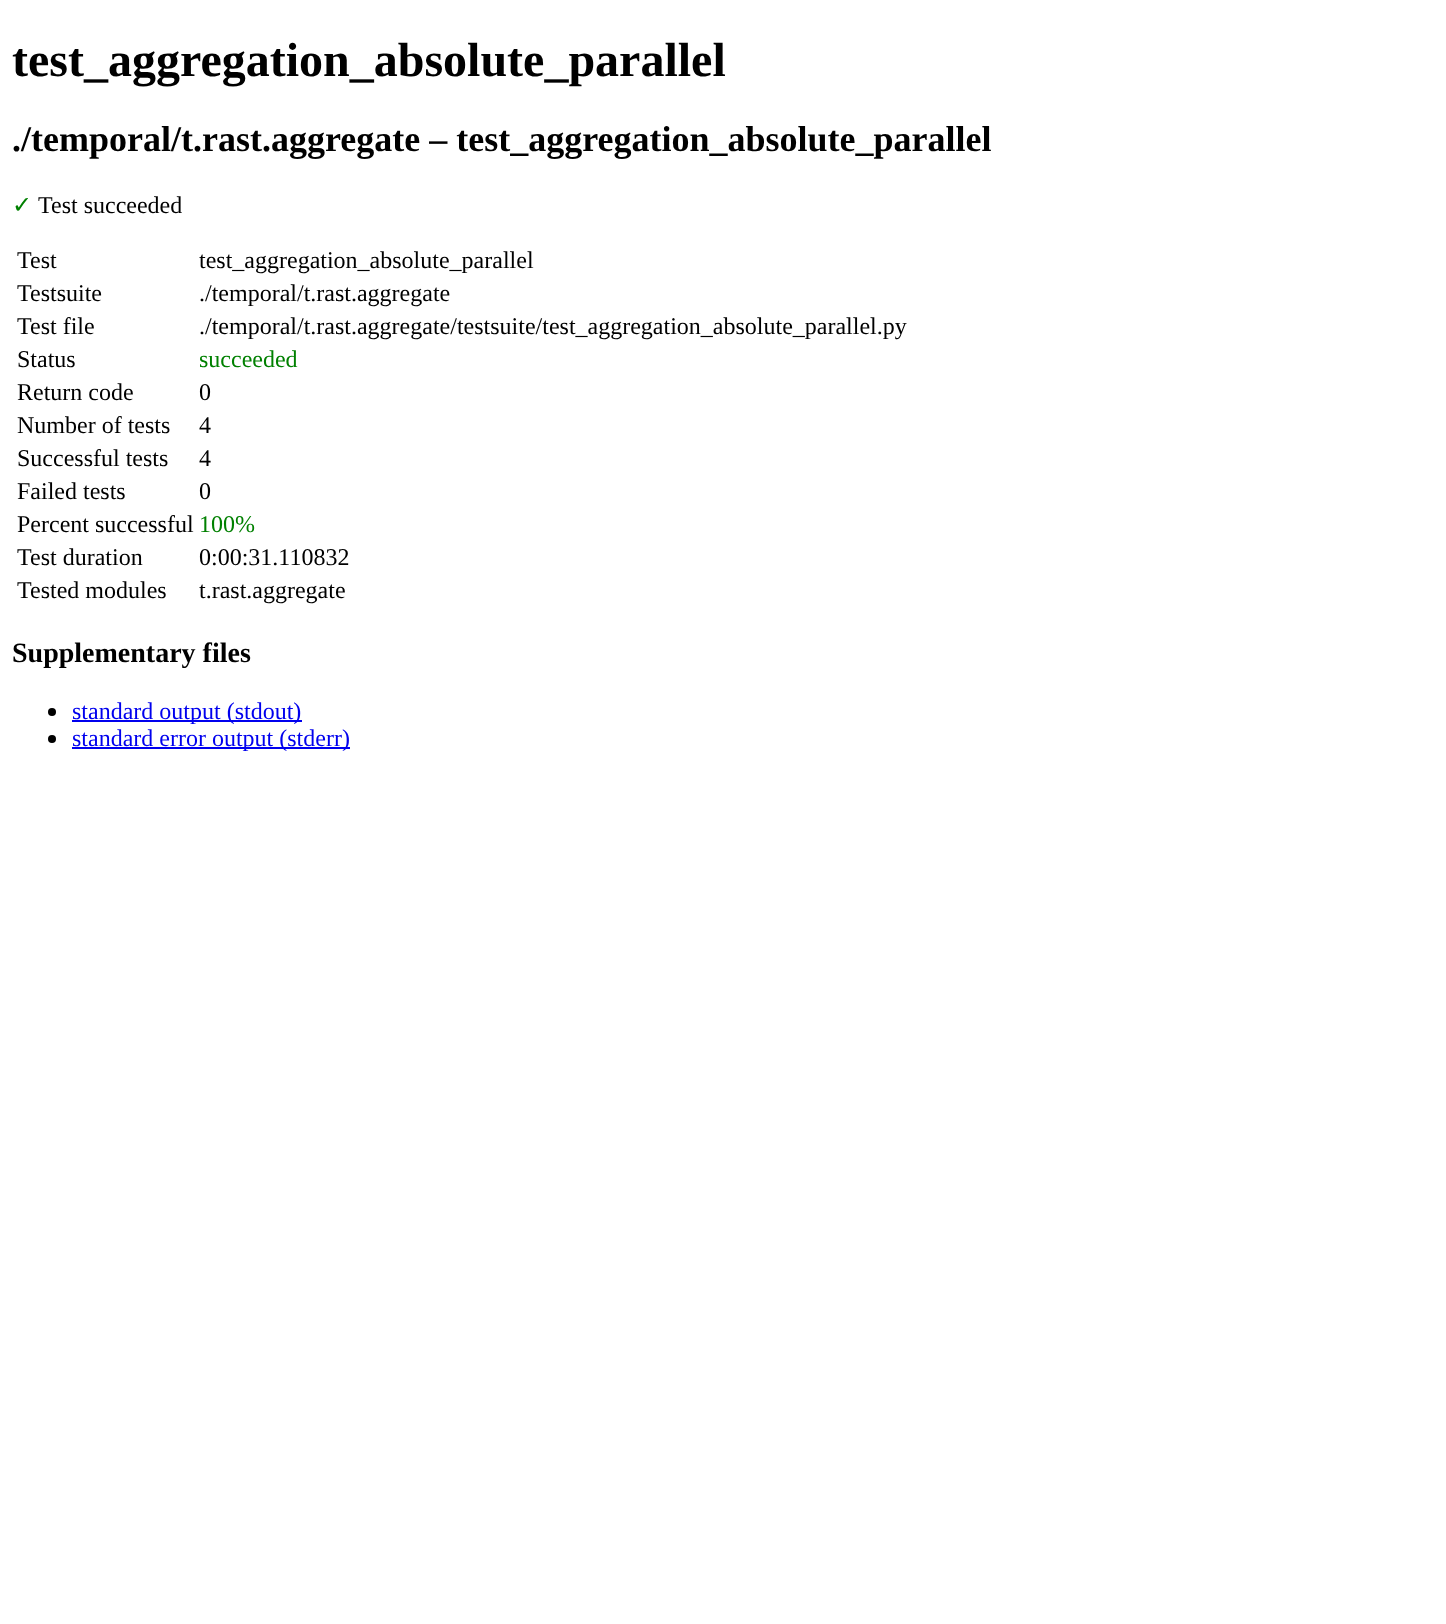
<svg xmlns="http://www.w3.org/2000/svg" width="1446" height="1624">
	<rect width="100%" height="100%" fill="#FFFFFF" />
	<text x="12" y="76" font-family="Liberation Serif" font-size="48" font-weight="700" fill="#000000">test_aggregation_absolute_parallel</text>
	<text x="12" y="151" font-family="Liberation Serif" font-size="36" font-weight="700" fill="#000000">./temporal/t.rast.aggregate – test_aggregation_absolute_parallel</text>
	<text x="12" y="213" font-family="DejaVu Sans" font-size="24" fill="#008000">✓</text>
	<g font-family="Liberation Serif" font-size="24" fill="#000000">
		<text x="38" y="213">Test succeeded</text>
		<text x="17" y="268">Test</text>
		<text x="199" y="268">test_aggregation_absolute_parallel</text>
		<text x="17" y="301">Testsuite</text>
		<text x="199" y="301">./temporal/t.rast.aggregate</text>
		<text x="17" y="334">Test file</text>
		<text x="199" y="334">./temporal/t.rast.aggregate/testsuite/test_aggregation_absolute_parallel.py</text>
		<text x="17" y="367">Status</text>
	</g>
	<text x="199" y="367" font-family="Liberation Serif" font-size="24" fill="#008000">succeeded</text>
	<g font-family="Liberation Serif" font-size="24" fill="#000000">
		<text x="17" y="400">Return code</text>
		<text x="199" y="400">0</text>
		<text x="17" y="433">Number of tests</text>
		<text x="199" y="433">4</text>
		<text x="17" y="466">Successful tests</text>
		<text x="199" y="466">4</text>
		<text x="17" y="499">Failed tests</text>
		<text x="199" y="499">0</text>
		<text x="17" y="532">Percent successful</text>
	</g>
	<text x="199" y="532" font-family="Liberation Serif" font-size="24" fill="#008000">100%</text>
	<g font-family="Liberation Serif" font-size="24" fill="#000000">
		<text x="17" y="565">Test duration</text>
		<text x="199" y="565">0:00:31.110832</text>
		<text x="17" y="598">Tested modules</text>
		<text x="199" y="598">t.rast.aggregate</text>
	</g>
	<text x="12" y="662" font-family="Liberation Serif" font-size="28" font-weight="700" fill="#000000">Supplementary files</text>
	<circle cx="52" cy="712" r="4" fill="#000000" />
	<rect x="72" y="720" width="230" height="2" fill="#0000EE" />
	<text x="72" y="719" font-family="Liberation Serif" font-size="24" fill="#0000EE">standard output (stdout)</text>
	<circle cx="52" cy="739" r="4" fill="#000000" />
	<rect x="72" y="747" width="278" height="2" fill="#0000EE" />
	<text x="72" y="746" font-family="Liberation Serif" font-size="24" fill="#0000EE">standard error output (stderr)</text>
</svg>
